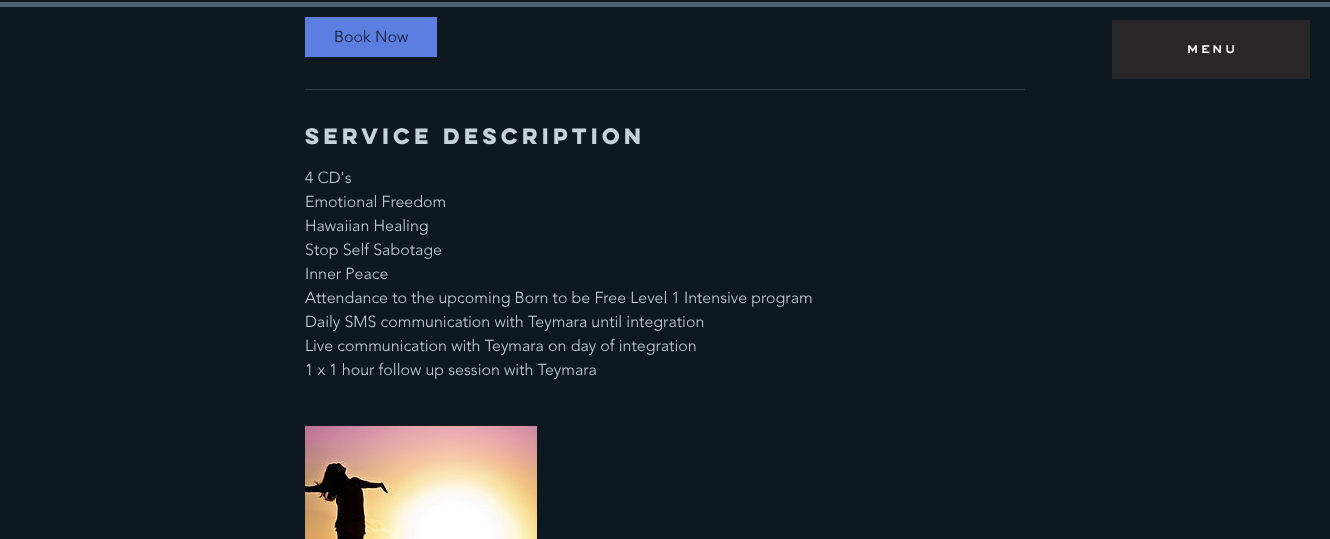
<svg xmlns="http://www.w3.org/2000/svg" width="1330" height="539">
	<rect width="100%" height="100%" fill="#0E1821" />
	<rect x="0" y="2" width="1330" height="5" fill="#516371" />
	<rect x="305" y="17" width="132" height="40" fill="#5B7EE0" />
	<text x="334" y="42" font-family="'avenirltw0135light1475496'" font-size="16" font-weight="300" fill="#0E1821">Book Now</text>
	<rect x="305" y="89" width="720" height="1" fill="#333D46" />
	<text x="305" y="144" font-family="'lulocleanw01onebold'" font-size="20" font-weight="700" fill="#C5D0D9">Service Description</text>
	<g font-family="'avenirltw0135light1475496'" font-size="16" font-weight="300" fill="#C5D0D9">
		<text x="305" y="183">4 CD's</text>
		<text x="305" y="207">Emotional Freedom</text>
		<text x="305" y="231">Hawaiian Healing</text>
		<text x="305" y="255">Stop Self Sabotage</text>
		<text x="305" y="279">Inner Peace</text>
		<text x="305" y="303">Attendance to the upcoming Born to be Free Level 1 Intensive program</text>
		<text x="305" y="327">Daily SMS communication with Teymara until integration</text>
		<text x="305" y="351">Live communication with Teymara on day of integration</text>
		<text x="305" y="375">1 x 1 hour follow up session with Teymara</text>
	</g>
	<image x="305" y="426" width="232" height="7" href="assets/img1.png" />
	<image x="305" y="433" width="232" height="106" href="assets/img2.png" />
	<rect x="1112" y="20" width="198" height="59" fill="#282626" />
	<text x="1186" y="53" font-family="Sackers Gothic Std" font-size="15" font-weight="900" letter-spacing="1" fill="#FFFFFF">menu</text>
</svg>
